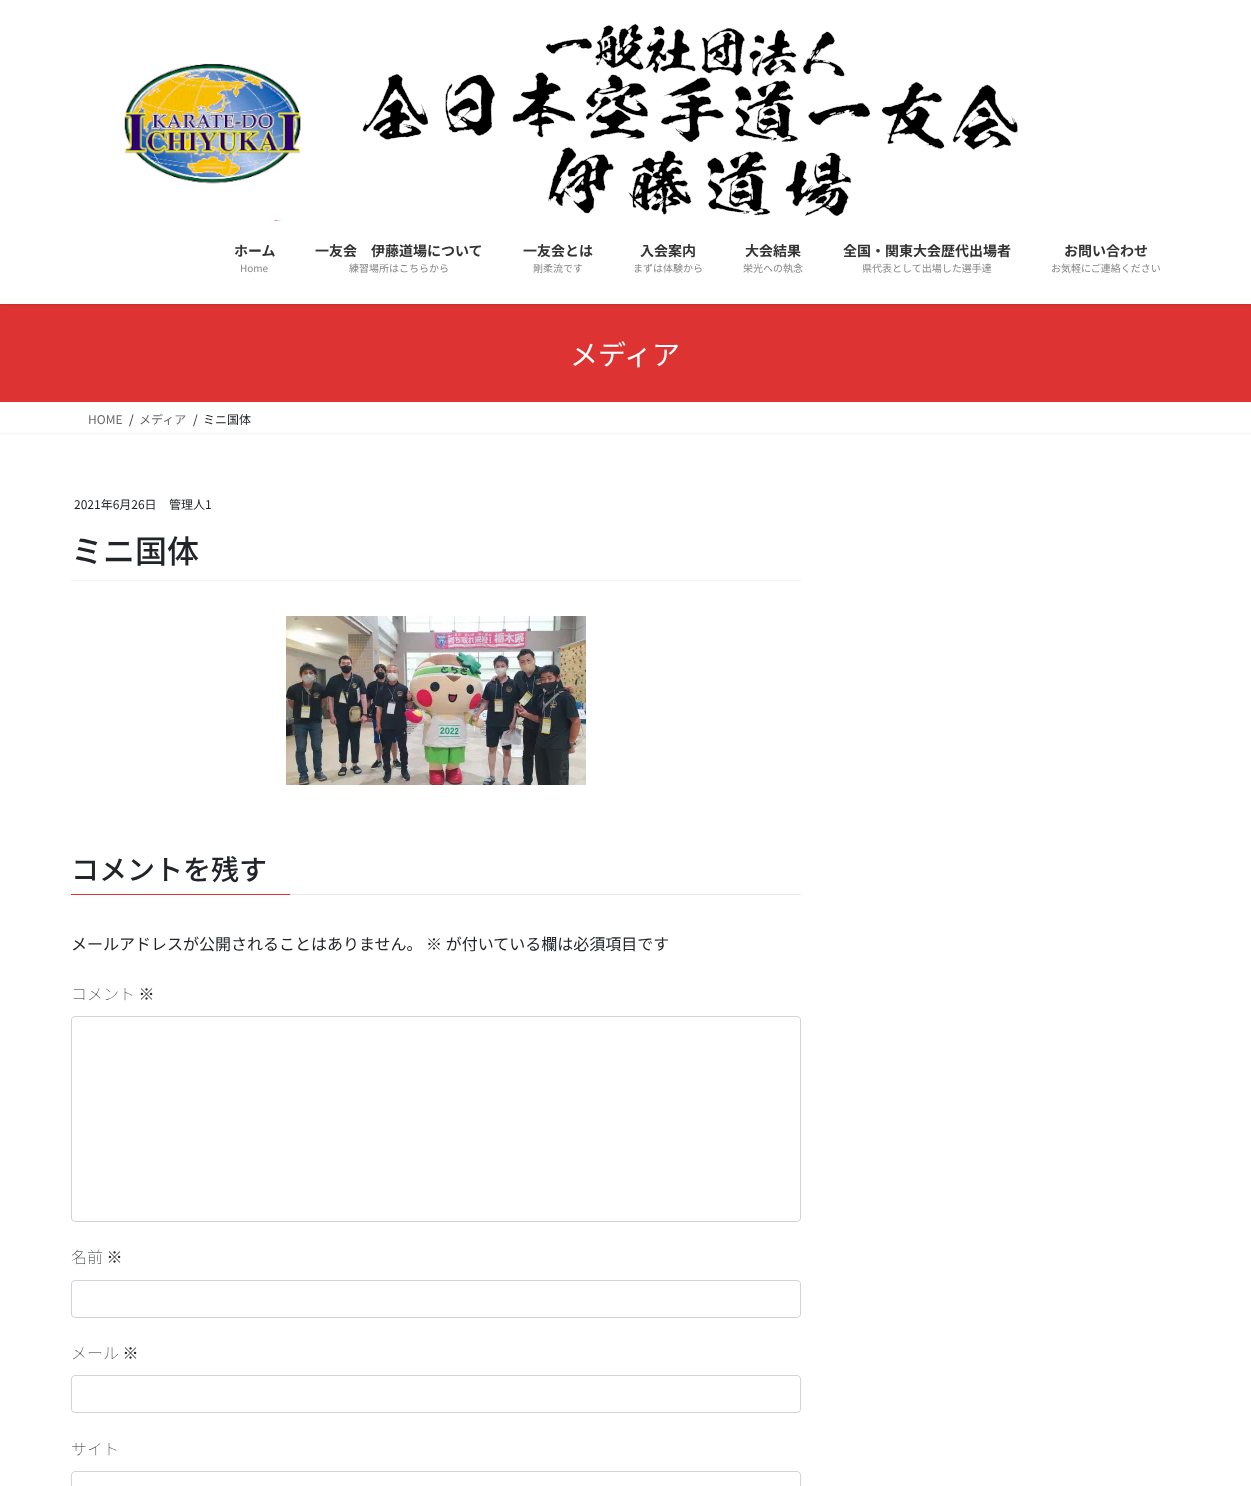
<svg xmlns="http://www.w3.org/2000/svg" width="1251" height="1486">
	<defs>
		<clipPath id="clip1"><rect x="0" y="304" width="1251" height="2" /></clipPath>
	</defs>
	<rect width="100%" height="100%" fill="#FFFFFF" />
	<rect x="0" y="304" width="1251" height="98" fill="#DD3333" />
	<g clip-path="url(#clip1)">
		<rect x="0" y="1" width="1251" height="304" fill="#000000" fill-opacity="0.1" filter="blur(1.5px)" />
	</g>
	<image x="124" y="23" width="894" height="198" href="assets/img1.png" />
	<text x="234" y="256" font-family="Noto Sans JP" font-size="14" font-weight="700" fill="#333333">ホーム</text>
	<text x="240" y="272" font-family="Noto Sans JP" font-size="10" fill="#858585">Home</text>
	<text x="315" y="256" font-family="Noto Sans JP" font-size="14" font-weight="700" fill="#333333">一友会　伊藤道場について</text>
	<text x="349" y="272" font-family="Noto Sans JP" font-size="10" fill="#858585">練習場所はこちらから</text>
	<text x="523" y="256" font-family="Noto Sans JP" font-size="14" font-weight="700" fill="#333333">一友会とは</text>
	<text x="533" y="272" font-family="Noto Sans JP" font-size="10" fill="#858585">剛柔流です</text>
	<text x="640" y="256" font-family="Noto Sans JP" font-size="14" font-weight="700" fill="#333333">入会案内</text>
	<text x="633" y="272" font-family="Noto Sans JP" font-size="10" fill="#858585">まずは体験から</text>
	<text x="745" y="256" font-family="Noto Sans JP" font-size="14" font-weight="700" fill="#333333">大会結果</text>
	<text x="743" y="272" font-family="Noto Sans JP" font-size="10" fill="#858585">栄光への執念</text>
	<text x="843" y="256" font-family="Noto Sans JP" font-size="14" font-weight="700" fill="#333333">全国・関東大会歴代出場者</text>
	<text x="862" y="272" font-family="Noto Sans JP" font-size="10" fill="#858585">県代表として出場した選手達</text>
	<text x="1064" y="256" font-family="Noto Sans JP" font-size="14" font-weight="700" fill="#333333">お問い合わせ</text>
	<text x="1051" y="272" font-family="Noto Sans JP" font-size="10" fill="#858585">お気軽にご連絡ください</text>
	<text x="570" y="365" font-family="Noto Sans JP" font-size="28" fill="#FFFFFF">メディア</text>
	<rect x="0" y="433" width="1251" height="1" fill="#F2F2F2" />
	<text x="88" y="424" font-family="Noto Sans JP" font-size="12" fill="#666666">HOME</text>
	<text x="129" y="424" font-family="Noto Sans JP" font-size="12" fill="#212529">/</text>
	<text x="139" y="424" font-family="Noto Sans JP" font-size="12" fill="#666666">メディア</text>
	<g font-family="Noto Sans JP" font-size="12" fill="#212529">
		<text x="193" y="424">/</text>
		<text x="203" y="424">ミニ国体</text>
	</g>
	<rect x="71" y="580" width="730" height="1" fill="#F2F2F2" />
	<g font-family="Noto Sans JP" font-size="12" fill="#212529">
		<text x="74" y="509">2021年6月26日</text>
		<text x="169" y="509">管理人1</text>
	</g>
	<text x="71" y="563" font-family="Noto Sans JP" font-size="32" font-weight="500" fill="#212529">ミニ国体</text>
	<image x="286" y="616" width="300" height="169" href="assets/img2.png" />
	<rect x="290" y="894" width="511" height="1" fill="#E6E6E6" />
	<text x="71" y="880" font-family="Noto Sans JP" font-size="28" font-weight="500" fill="#212529">コメントを残す</text>
	<rect x="71" y="894" width="219" height="1" fill="#DD3333" />
	<text x="71" y="950" font-family="Noto Sans JP" font-size="16" fill="#212529">メールアドレスが公開されることはありません。 ※ が付いている欄は必須項目です</text>
	<text x="71" y="1000" font-family="Noto Sans JP" font-size="16" font-weight="100" fill="#212529">コメント ※</text>
	<rect x="71.5" y="1016.5" width="729" height="205" rx="3.5" fill="none" stroke="#CED4DA" />
	<text x="71" y="1263" font-family="Noto Sans JP" font-size="16" font-weight="100" fill="#212529">名前 ※</text>
	<rect x="71.5" y="1280.5" width="729" height="37" rx="3.5" fill="none" stroke="#CED4DA" />
	<text x="71" y="1359" font-family="Noto Sans JP" font-size="16" font-weight="100" fill="#212529">メール ※</text>
	<rect x="71.5" y="1375.5" width="729" height="37" rx="3.5" fill="none" stroke="#CED4DA" />
	<text x="71" y="1455" font-family="Noto Sans JP" font-size="16" font-weight="100" fill="#212529">サイト</text>
	<rect x="71.5" y="1471.5" width="729" height="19" rx="3.5" fill="none" stroke="#CED4DA" />
</svg>
